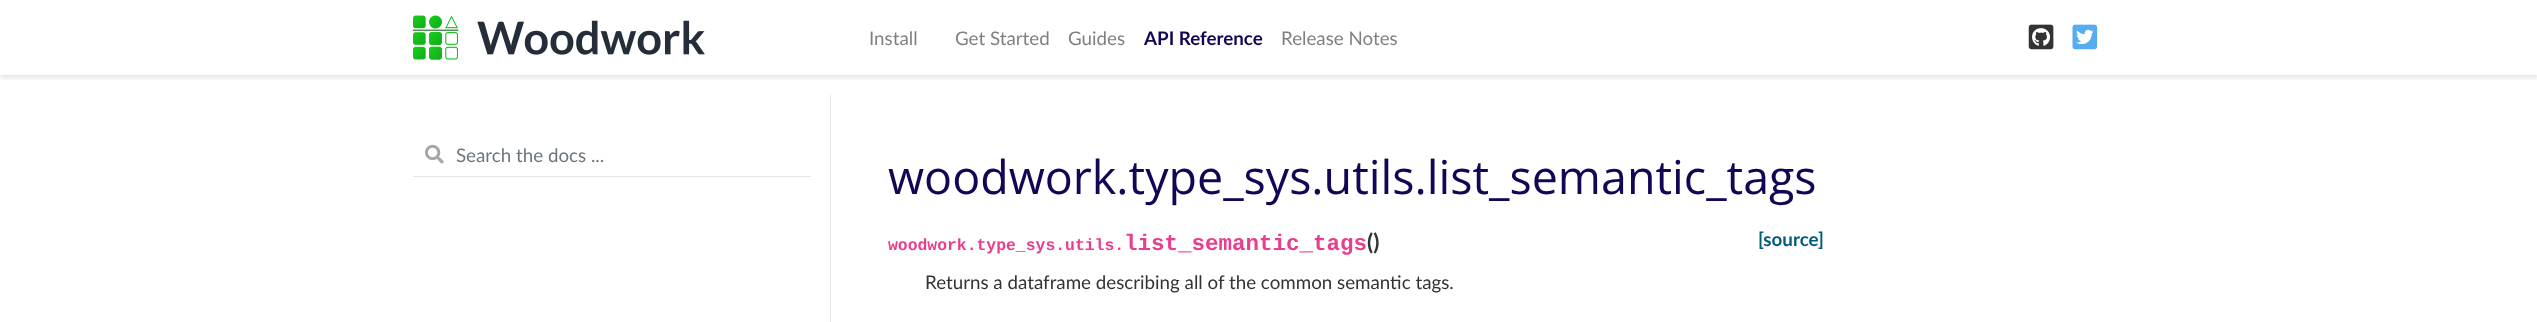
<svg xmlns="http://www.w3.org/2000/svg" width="2537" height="322">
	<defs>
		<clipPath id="clip1"><rect x="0" y="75" width="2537" height="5" /></clipPath>
	</defs>
	<rect width="100%" height="100%" fill="#FFFFFF" />
	<g clip-path="url(#clip1)">
		<rect x="0" y="3" width="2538" height="75" fill="#000000" fill-opacity="0.11" filter="blur(2.5px)" />
	</g>
	<image x="413" y="15" width="292" height="45" href="assets/img1.png" />
	<g font-family="Lato" font-size="18.75" fill="#808080">
		<text x="869" y="45">Install</text>
		<text x="955" y="45">Get Started</text>
		<text x="1068" y="45">Guides</text>
	</g>
	<text x="1144" y="45" font-family="Lato" font-size="18.75" font-weight="700" fill="#130654">API Reference</text>
	<text x="1281" y="45" font-family="Lato" font-size="18.75" fill="#808080">Release Notes</text>
	<image x="2028" y="24" width="26" height="26" href="assets/img2.png" />
	<image x="2072" y="24" width="26" height="26" href="assets/img3.png" />
	<rect x="830" y="95" width="1" height="227" fill="#E6E6E6" />
	<image x="425" y="144" width="19" height="20" href="assets/img4.png" />
	<rect x="413" y="176" width="398" height="1" fill="#E5E5E5" />
	<text x="456" y="162" font-family="Lato" font-size="18.75" fill="#6C757D">Search the docs ...</text>
	<text x="888" y="194" font-family="Open Sans" font-size="46.6" fill="#130654">woodwork.type_sys.utils.list_semantic_tags</text>
	<text x="888" y="250" font-family="Liberation Mono" font-size="16.4" font-weight="700" fill="#E83E8C">woodwork.type_sys.utils.</text>
	<text x="1124" y="250" font-family="Liberation Mono" font-size="22.5" font-weight="700" fill="#E83E8C">list_semantic_tags</text>
	<text x="1367" y="250" font-family="Lato" font-size="22.5" font-weight="700" fill="#333333">()</text>
	<text x="1758" y="246" font-family="Lato" font-size="18.75" font-weight="700" fill="#005B81">[source]</text>
	<text x="925" y="289" font-family="Lato" font-size="18.75" fill="#333333">Returns a dataframe describing all of the common semantic tags.</text>
</svg>
